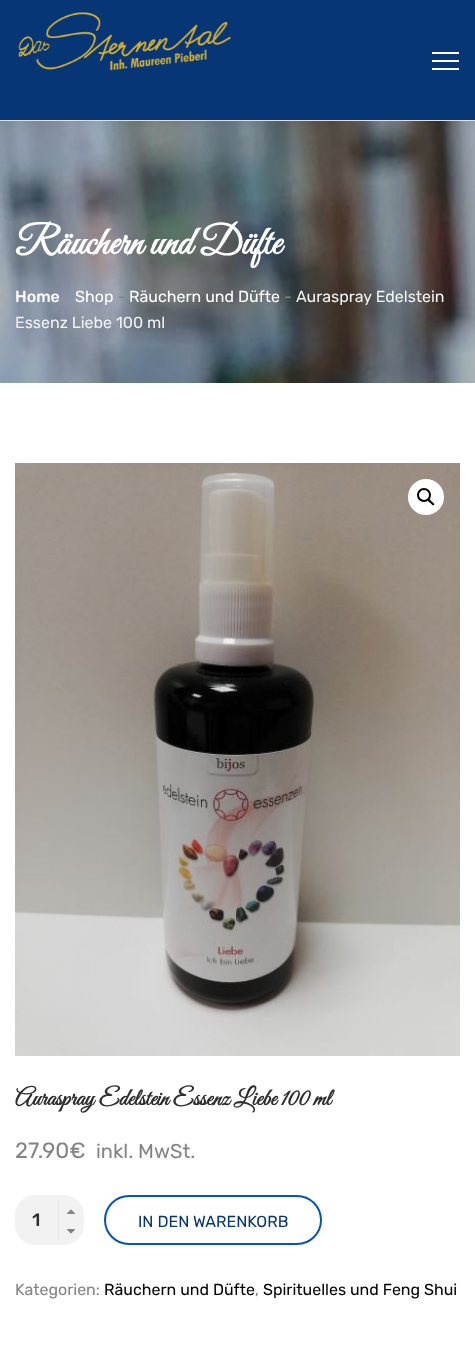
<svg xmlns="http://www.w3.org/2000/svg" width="475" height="1350">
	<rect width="100%" height="100%" fill="#FFFFFF" />
	<rect x="0" y="120" width="475" height="1" fill="#E1E1E1" />
	<rect x="0" y="0" width="475" height="120" fill="#063675" />
	<image x="18" y="11" width="214" height="60" href="assets/img1.png" />
	<rect x="432" y="60" width="27" height="2" fill="#FFFFFF" />
	<rect x="432" y="52" width="27" height="2" fill="#FFFFFF" />
	<rect x="432" y="68" width="27" height="2" fill="#FFFFFF" />
	<image x="0" y="121" width="475" height="262" href="assets/img2.png" />
	<text x="15" y="254" font-family="Great Vibes" font-size="40" font-weight="700" fill="#FFFFFF">Räuchern und Düfte</text>
	<text x="15" y="302" font-family="Rubik" font-size="16" font-weight="500" fill="#FFFFFF">Home</text>
	<text x="75" y="302" font-family="Rubik" font-size="16" fill="#FFFFFF">Shop</text>
	<text x="118" y="302" font-family="Rubik" font-size="16" fill="#848484">-</text>
	<text x="129" y="302" font-family="Rubik" font-size="16" fill="#FFFFFF">Räuchern und Düfte</text>
	<text x="284" y="302" font-family="Rubik" font-size="16" fill="#848484">-</text>
	<g font-family="Rubik" font-size="16" fill="#F2F2F2">
		<text x="296" y="302">Auraspray Edelstein</text>
		<text x="15" y="328">Essenz Liebe 100 ml</text>
	</g>
	<image x="15" y="463" width="445" height="593" href="assets/img3.png" />
	<circle cx="426" cy="497" r="18" fill="#FFFFFF" />
	<circle cx="424" cy="495" r="6" fill="none" stroke="#000000" stroke-width="2" />
	<path d="M428 499.5C429.5 498 431 501 431.5 501.5C432.5 502 435 504 434 505C432.5 506 431 503.5 430.5 503C429.5 502.5 427 500.5 428 499.5Z" fill="#000000" />
	<text x="15" y="1105" font-family="Great Vibes" font-size="24" font-weight="700" fill="#2E2E2E">Auraspray Edelstein Essenz Liebe 100 ml</text>
	<text x="15" y="1158" font-family="Rubik" font-size="22" fill="#848484">27.90€</text>
	<text x="96" y="1158" font-family="Rubik" font-size="20" fill="#848484">inkl. MwSt.</text>
	<rect x="15.5" y="1195.5" width="68" height="49" rx="19.5" fill="#F2F2F2" stroke="#F2F2F2" />
	<rect x="58" y="1199" width="1" height="42" fill="#E5E5E5" />
	<image x="67" y="1229" width="8" height="5" href="assets/img4.png" />
	<image x="67" y="1209" width="8" height="5" href="assets/img5.png" />
	<text x="32" y="1226" font-family="Rubik" font-size="18" font-weight="500" fill="#2E2E2E">1</text>
	<rect x="105" y="1196" width="216" height="48" rx="24" fill="none" stroke="#0753B5" stroke-width="2" />
	<text x="138" y="1227" font-family="Rubik" font-size="16" fill="#063675">IN DEN WARENKORB</text>
	<text x="15" y="1295" font-family="Rubik" font-size="16" fill="#848484">Kategorien:</text>
	<text x="104" y="1295" font-family="Rubik" font-size="16" fill="#000000">Räuchern und Düfte</text>
	<text x="255" y="1295" font-family="Rubik" font-size="16" fill="#848484">,</text>
	<text x="263" y="1295" font-family="Rubik" font-size="16" fill="#000000">Spirituelles und Feng Shui</text>
</svg>
